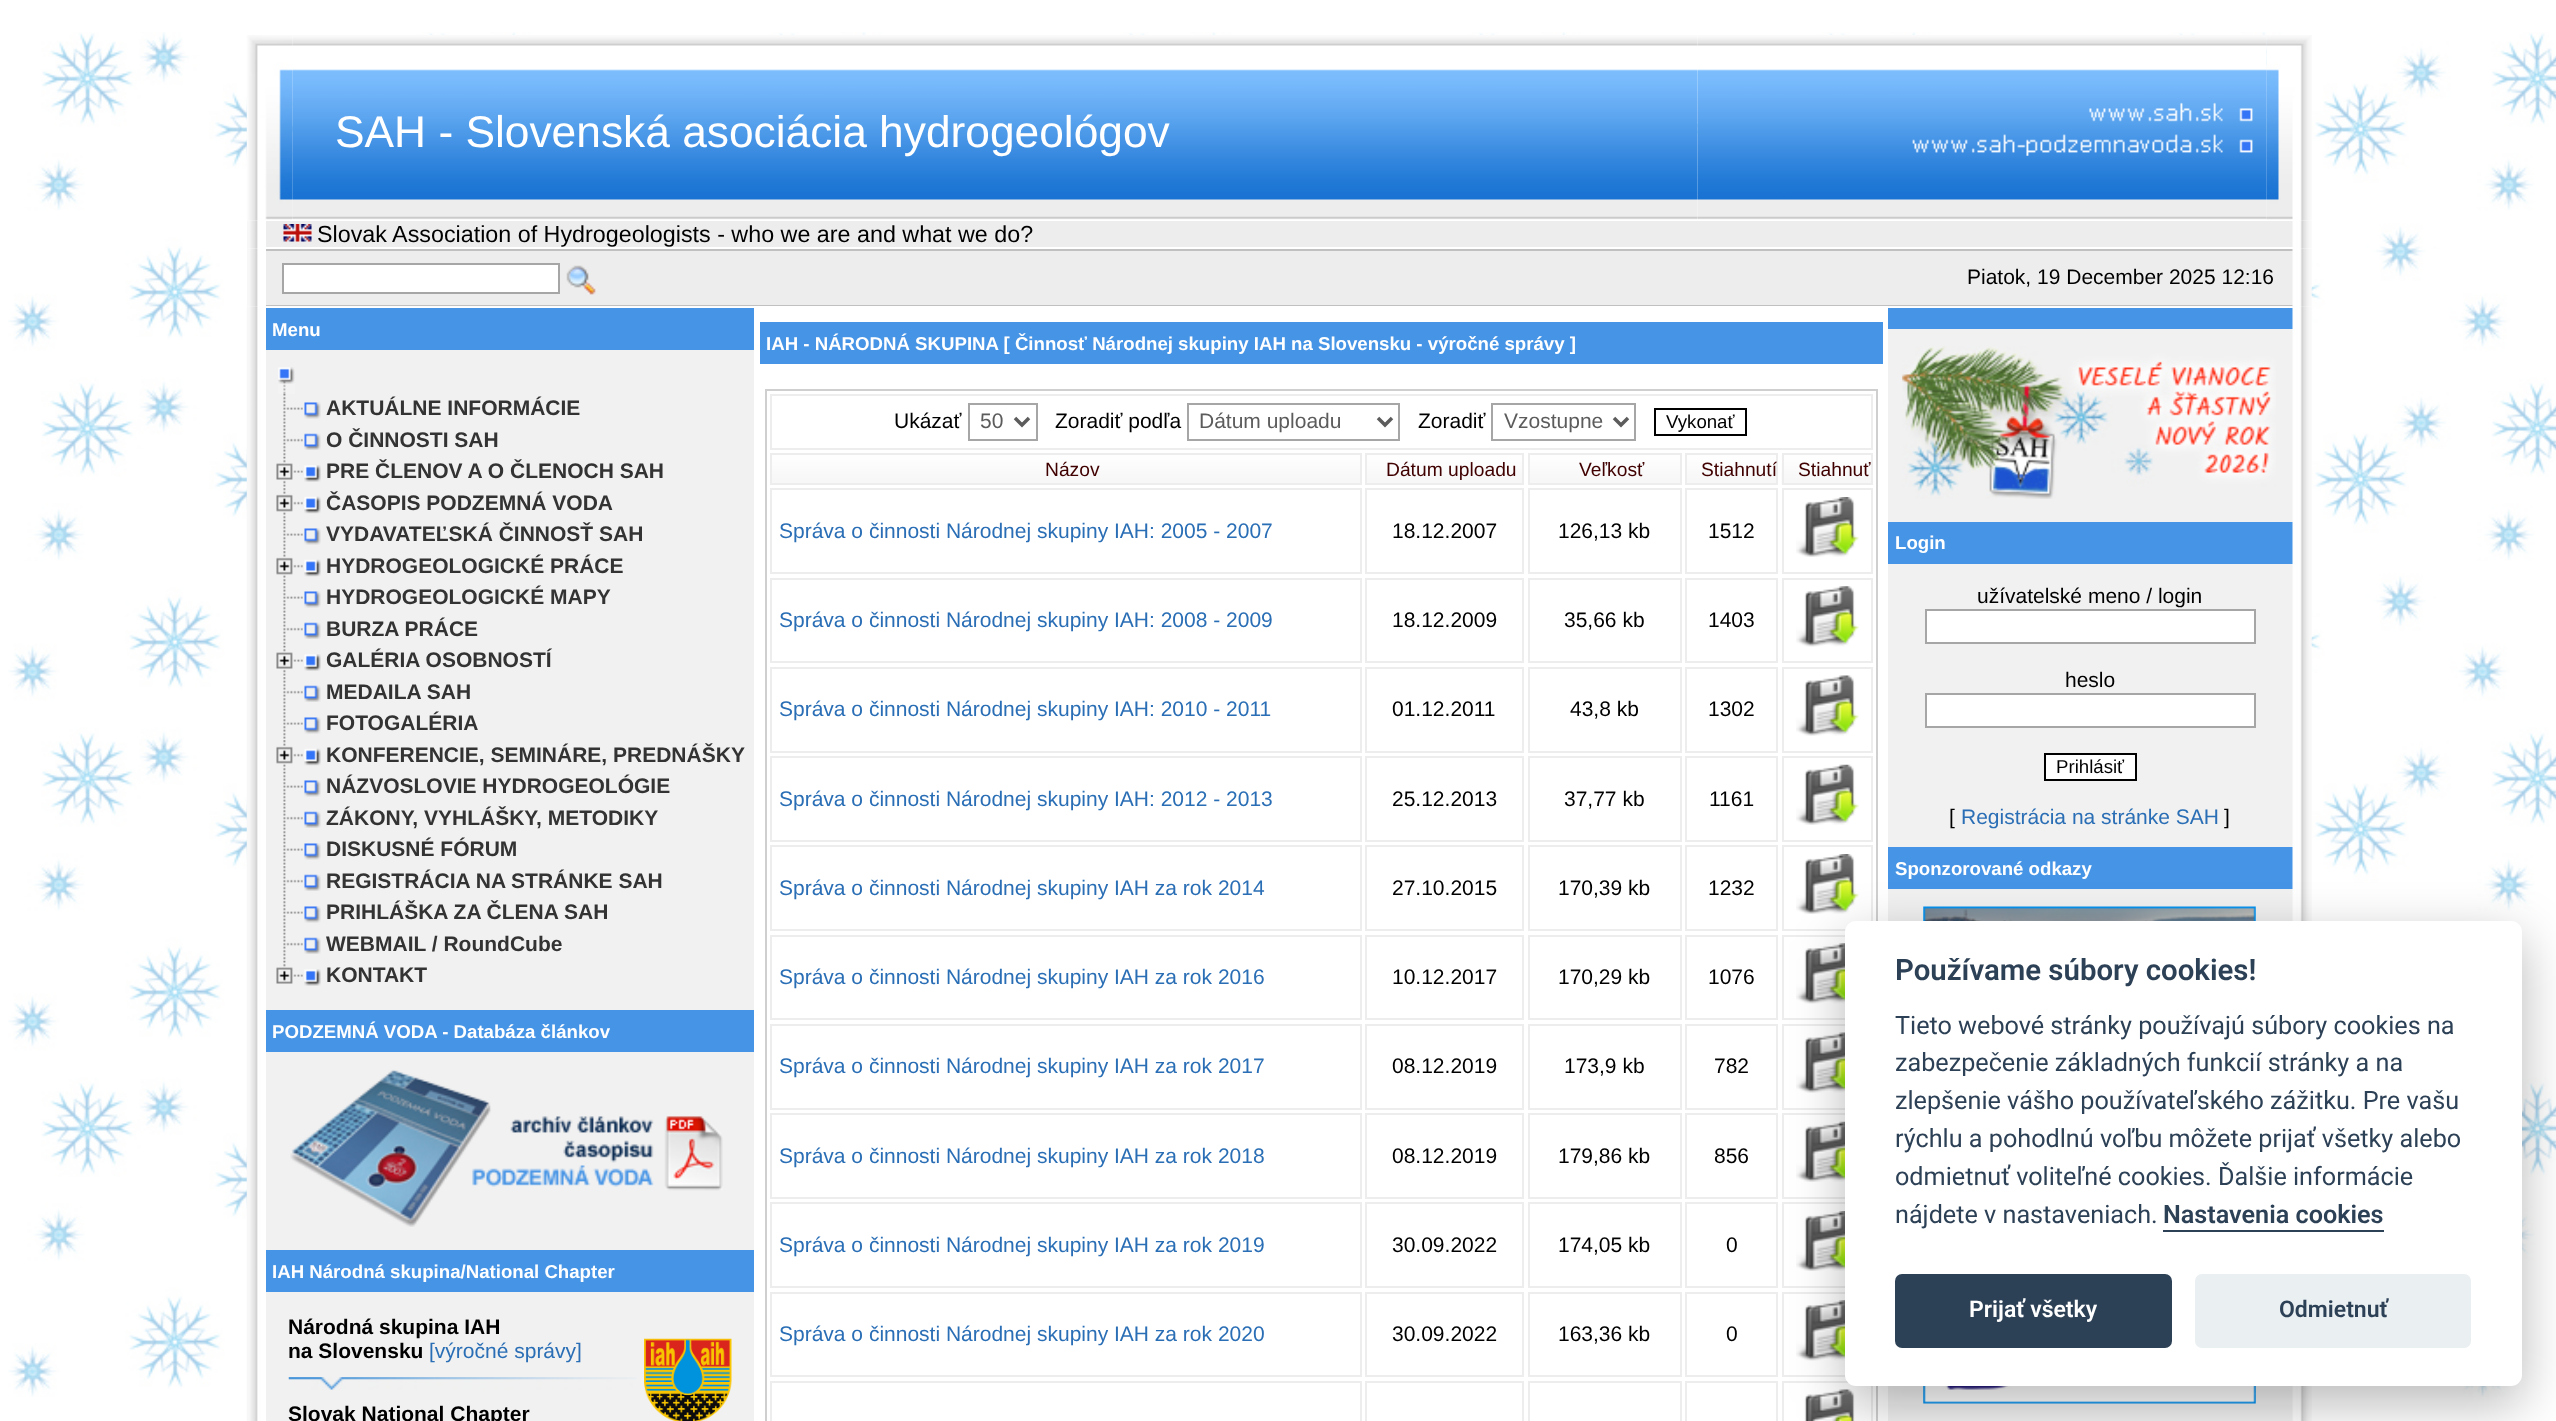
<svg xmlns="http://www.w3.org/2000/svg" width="2556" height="1421">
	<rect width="100%" height="100%" fill="#FFFFFF" />
	<image x="8" y="32" width="2548" height="1365" href="assets/img1.png" />
	<image x="246" y="35" width="47" height="186" href="assets/img2.png" />
	<image x="292" y="35" width="1406" height="185" href="assets/img3.png" />
	<text x="335" y="147" font-family="Liberation Sans" font-size="44.3" fill="#FFFFFF">SAH - Slovenská asociácia hydrogeológov</text>
	<image x="1697" y="35" width="570" height="185" href="assets/img4.png" />
	<image x="1912" y="102" width="341" height="54" href="assets/img5.png" />
	<image x="2266" y="35" width="46" height="186" href="assets/img6.png" />
	<image x="247" y="220" width="11" height="29" href="assets/img7.png" />
	<rect x="266" y="221" width="2027" height="26" fill="#EDEDED" />
	<rect x="280" y="247" width="2003" height="2" fill="#FFFFFF" />
	<image x="283" y="224" width="29" height="18" href="assets/img8.png" />
	<text x="317" y="242" font-family="Liberation Sans" font-size="23.3" fill="#000000">Slovak Association of Hydrogeologists - who we are and what we do?</text>
	<image x="2292" y="220" width="20" height="29" href="assets/img9.png" />
	<image x="247" y="248" width="11" height="59" href="assets/img10.png" />
	<rect x="266" y="251" width="2027" height="54" fill="#EDEDED" />
	<rect x="266" y="249" width="2027" height="2" fill="#C0C0C0" />
	<rect x="266" y="305" width="2027" height="1" fill="#C0C0C0" />
	<rect x="283" y="264" width="276" height="29" fill="#FFFFFF" stroke="#A6A6A6" stroke-width="2" />
	<image x="566" y="265" width="30" height="30" href="assets/img11.png" />
	<image x="2292" y="248" width="20" height="59" href="assets/img12.png" />
	<text x="1967" y="284" font-family="Liberation Sans" font-size="21" fill="#000000">Piatok, 19 December 2025 12:16</text>
	<image x="246" y="306" width="20" height="1115" href="assets/img13.png" />
	<rect x="266" y="306" width="488" height="1115" fill="#F1F1F1" />
	<image x="266" y="306" width="488" height="2" href="assets/img14.png" />
	<rect x="266" y="308" width="488" height="42" fill="#4694E6" />
	<text x="272" y="336" font-family="Liberation Sans" font-size="18.65" font-weight="700" fill="#FFFFFF">Menu</text>
	<image x="278" y="367" width="17" height="27" href="assets/img15.png" />
	<image x="283" y="393" width="20" height="31" href="assets/img16.png" />
	<image x="302" y="402" width="19" height="17" href="assets/img17.png" />
	<text x="326" y="415" font-family="Liberation Sans" font-size="21" font-weight="700" fill="#333333">AKTUÁLNE INFORMÁCIE</text>
	<image x="283" y="425" width="20" height="31" href="assets/img18.png" />
	<image x="302" y="433" width="19" height="17" href="assets/img19.png" />
	<text x="326" y="447" font-family="Liberation Sans" font-size="21" font-weight="700" fill="#333333">O ČINNOSTI SAH</text>
	<image x="276" y="456" width="27" height="31" href="assets/img20.png" />
	<image x="302" y="465" width="19" height="17" href="assets/img21.png" />
	<text x="326" y="478" font-family="Liberation Sans" font-size="21" font-weight="700" fill="#333333">PRE ČLENOV A O ČLENOCH SAH</text>
	<image x="276" y="488" width="27" height="31" href="assets/img22.png" />
	<image x="302" y="496" width="19" height="18" href="assets/img23.png" />
	<text x="326" y="510" font-family="Liberation Sans" font-size="21" font-weight="700" fill="#333333">ČASOPIS PODZEMNÁ VODA</text>
	<image x="283" y="519" width="20" height="31" href="assets/img24.png" />
	<image x="302" y="528" width="19" height="17" href="assets/img17.png" />
	<text x="326" y="541" font-family="Liberation Sans" font-size="21" font-weight="700" fill="#333333">VYDAVATEĽSKÁ ČINNOSŤ SAH</text>
	<image x="276" y="551" width="27" height="31" href="assets/img22.png" />
	<image x="302" y="559" width="19" height="18" href="assets/img23.png" />
	<text x="326" y="573" font-family="Liberation Sans" font-size="21" font-weight="700" fill="#333333">HYDROGEOLOGICKÉ PRÁCE</text>
	<image x="283" y="582" width="20" height="31" href="assets/img24.png" />
	<image x="302" y="591" width="19" height="17" href="assets/img17.png" />
	<text x="326" y="604" font-family="Liberation Sans" font-size="21" font-weight="700" fill="#333333">HYDROGEOLOGICKÉ MAPY</text>
	<image x="283" y="614" width="20" height="31" href="assets/img18.png" />
	<image x="302" y="622" width="19" height="17" href="assets/img19.png" />
	<text x="326" y="636" font-family="Liberation Sans" font-size="21" font-weight="700" fill="#333333">BURZA PRÁCE</text>
	<image x="276" y="645" width="27" height="31" href="assets/img20.png" />
	<image x="302" y="654" width="19" height="17" href="assets/img21.png" />
	<text x="326" y="667" font-family="Liberation Sans" font-size="21" font-weight="700" fill="#333333">GALÉRIA OSOBNOSTÍ</text>
	<image x="283" y="677" width="20" height="31" href="assets/img18.png" />
	<image x="302" y="685" width="19" height="17" href="assets/img19.png" />
	<text x="326" y="699" font-family="Liberation Sans" font-size="21" font-weight="700" fill="#333333">MEDAILA SAH</text>
	<image x="283" y="708" width="20" height="31" href="assets/img24.png" />
	<image x="302" y="717" width="19" height="17" href="assets/img17.png" />
	<text x="326" y="730" font-family="Liberation Sans" font-size="21" font-weight="700" fill="#333333">FOTOGALÉRIA</text>
	<image x="276" y="740" width="27" height="31" href="assets/img22.png" />
	<image x="302" y="748" width="19" height="18" href="assets/img23.png" />
	<text x="326" y="762" font-family="Liberation Sans" font-size="21" font-weight="700" fill="#333333">KONFERENCIE, SEMINÁRE, PREDNÁŠKY</text>
	<image x="283" y="771" width="20" height="31" href="assets/img24.png" />
	<image x="302" y="780" width="19" height="17" href="assets/img17.png" />
	<text x="326" y="793" font-family="Liberation Sans" font-size="21" font-weight="700" fill="#333333">NÁZVOSLOVIE HYDROGEOLÓGIE</text>
	<image x="283" y="803" width="20" height="31" href="assets/img18.png" />
	<image x="302" y="811" width="19" height="17" href="assets/img19.png" />
	<text x="326" y="825" font-family="Liberation Sans" font-size="21" font-weight="700" fill="#333333">ZÁKONY, VYHLÁŠKY, METODIKY</text>
	<image x="283" y="834" width="20" height="31" href="assets/img24.png" />
	<image x="302" y="843" width="19" height="17" href="assets/img17.png" />
	<text x="326" y="856" font-family="Liberation Sans" font-size="21" font-weight="700" fill="#333333">DISKUSNÉ FÓRUM</text>
	<image x="283" y="866" width="20" height="31" href="assets/img18.png" />
	<image x="302" y="874" width="19" height="17" href="assets/img19.png" />
	<text x="326" y="888" font-family="Liberation Sans" font-size="21" font-weight="700" fill="#333333">REGISTRÁCIA NA STRÁNKE SAH</text>
	<image x="283" y="897" width="20" height="31" href="assets/img24.png" />
	<image x="302" y="906" width="19" height="17" href="assets/img17.png" />
	<text x="326" y="919" font-family="Liberation Sans" font-size="21" font-weight="700" fill="#333333">PRIHLÁŠKA ZA ČLENA SAH</text>
	<image x="283" y="929" width="20" height="31" href="assets/img18.png" />
	<image x="302" y="937" width="19" height="17" href="assets/img19.png" />
	<text x="326" y="951" font-family="Liberation Sans" font-size="21" font-weight="700" fill="#333333">WEBMAIL / RoundCube</text>
	<image x="276" y="960" width="27" height="24" href="assets/img25.png" />
	<image x="302" y="969" width="19" height="17" href="assets/img21.png" />
	<text x="326" y="982" font-family="Liberation Sans" font-size="21" font-weight="700" fill="#333333">KONTAKT</text>
	<rect x="266" y="1010" width="488" height="42" fill="#4694E6" />
	<text x="272" y="1038" font-family="Liberation Sans" font-size="18.65" font-weight="700" fill="#FFFFFF">PODZEMNÁ VODA - Databáza článkov</text>
	<image x="290" y="1069" width="433" height="158" href="assets/img26.png" />
	<rect x="266" y="1250" width="488" height="42" fill="#4694E6" />
	<text x="272" y="1278" font-family="Liberation Sans" font-size="18.65" font-weight="700" fill="#FFFFFF">IAH Národná skupina/National Chapter</text>
	<g font-family="Liberation Sans" font-size="21" font-weight="700" fill="#000000">
		<text x="288" y="1334">Národná skupina IAH</text>
		<text x="288" y="1358">na Slovensku</text>
	</g>
	<text x="429" y="1358" font-family="Liberation Sans" font-size="21" fill="#2A6EB5">[výročné správy]</text>
	<image x="644" y="1338" width="88" height="83" href="assets/img27.png" />
	<image x="288" y="1377" width="349" height="13" href="assets/img28.png" />
	<text x="288" y="1421" font-family="Liberation Sans" font-size="21" font-weight="700" fill="#000000">Slovak National Chapter</text>
	<rect x="754" y="306" width="1134" height="1091" fill="#FFFFFF" />
	<rect x="760" y="322" width="1123" height="42" fill="#4694E6" />
	<text x="766" y="350" font-family="Liberation Sans" font-size="18.65" font-weight="700" fill="#FFFFFF">IAH - NÁRODNÁ SKUPINA [ Činnosť Národnej skupiny IAH na Slovensku - výročné správy ]</text>
	<rect x="766" y="390" width="1111" height="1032" fill="none" stroke="#CFCFCF" stroke-width="2" />
	<rect x="771" y="395" width="1101" height="54" fill="none" stroke="#EDEDED" stroke-width="2" />
	<text x="894" y="428" font-family="Liberation Sans" font-size="21" fill="#000000">Ukázať</text>
	<rect x="969" y="404" width="68" height="36" fill="none" stroke="#A6A6A6" stroke-width="2" />
	<path d="M1015 418L1022 425L1029 418" fill="none" stroke="#5C5C5C" stroke-width="3.5" />
	<text x="980" y="428" font-family="Liberation Sans" font-size="21" fill="#5C5C5C">50</text>
	<text x="1055" y="428" font-family="Liberation Sans" font-size="21" fill="#000000">Zoradiť podľa</text>
	<rect x="1188" y="404" width="211" height="36" fill="none" stroke="#A6A6A6" stroke-width="2" />
	<path d="M1378 418L1385 425L1392 418" fill="none" stroke="#5C5C5C" stroke-width="3.5" />
	<text x="1199" y="428" font-family="Liberation Sans" font-size="21" fill="#5C5C5C">Dátum uploadu</text>
	<text x="1418" y="428" font-family="Liberation Sans" font-size="21" fill="#000000">Zoradiť</text>
	<rect x="1492" y="404" width="143" height="36" fill="none" stroke="#A6A6A6" stroke-width="2" />
	<path d="M1614 418L1621 425L1628 418" fill="none" stroke="#5C5C5C" stroke-width="3.5" />
	<text x="1504" y="428" font-family="Liberation Sans" font-size="21" fill="#5C5C5C">Vzostupne</text>
	<rect x="1655" y="409" width="91" height="26" fill="none" stroke="#000000" stroke-width="2" />
	<text x="1666" y="428" font-family="Liberation Sans" font-size="18.65" fill="#000000">Vykonať</text>
	<image x="772" y="455" width="588" height="28" href="assets/img29.png" />
	<rect x="771" y="454" width="590" height="30" fill="none" stroke="#EDEDED" stroke-width="2" />
	<text x="1045" y="476" font-family="Liberation Sans" font-size="19.25" fill="#400000">Názov</text>
	<image x="1367" y="455" width="155" height="28" href="assets/img30.png" />
	<rect x="1366" y="454" width="157" height="30" fill="none" stroke="#EDEDED" stroke-width="2" />
	<text x="1386" y="476" font-family="Liberation Sans" font-size="19.25" fill="#400000">Dátum uploadu</text>
	<image x="1530" y="455" width="150" height="28" href="assets/img31.png" />
	<rect x="1529" y="454" width="152" height="30" fill="none" stroke="#EDEDED" stroke-width="2" />
	<text x="1579" y="476" font-family="Liberation Sans" font-size="19.25" fill="#400000">Veľkosť</text>
	<image x="1687" y="455" width="89" height="28" href="assets/img32.png" />
	<rect x="1686" y="454" width="91" height="30" fill="none" stroke="#EDEDED" stroke-width="2" />
	<text x="1701" y="476" font-family="Liberation Sans" font-size="19.25" fill="#400000">Stiahnutí</text>
	<image x="1781" y="455" width="90" height="30" href="assets/img33.png" />
	<rect x="1783" y="454" width="89" height="30" fill="none" stroke="#EDEDED" stroke-width="2" />
	<text x="1798" y="476" font-family="Liberation Sans" font-size="19.25" fill="#400000">Stiahnuť</text>
	<rect x="771" y="489" width="590" height="84" fill="none" stroke="#EDEDED" stroke-width="2" />
	<text x="779" y="538" font-family="Liberation Sans" font-size="21" fill="#2A6EB5">Správa o činnosti Národnej skupiny IAH: 2005 - 2007</text>
	<rect x="1366" y="489" width="157" height="84" fill="none" stroke="#EDEDED" stroke-width="2" />
	<text x="1392" y="538" font-family="Liberation Sans" font-size="21" fill="#000000">18.12.2007</text>
	<rect x="1529" y="489" width="152" height="84" fill="none" stroke="#EDEDED" stroke-width="2" />
	<text x="1558" y="538" font-family="Liberation Sans" font-size="21" fill="#000000">126,13 kb</text>
	<rect x="1686" y="489" width="91" height="84" fill="none" stroke="#EDEDED" stroke-width="2" />
	<text x="1708" y="538" font-family="Liberation Sans" font-size="21" fill="#000000">1512</text>
	<rect x="1783" y="489" width="89" height="84" fill="none" stroke="#EDEDED" stroke-width="2" />
	<image x="1796" y="497" width="63" height="60" href="assets/img34.png" />
	<rect x="771" y="579" width="590" height="83" fill="none" stroke="#EDEDED" stroke-width="2" />
	<text x="779" y="627" font-family="Liberation Sans" font-size="21" fill="#2A6EB5">Správa o činnosti Národnej skupiny IAH: 2008 - 2009</text>
	<rect x="1366" y="579" width="157" height="83" fill="none" stroke="#EDEDED" stroke-width="2" />
	<text x="1392" y="627" font-family="Liberation Sans" font-size="21" fill="#000000">18.12.2009</text>
	<rect x="1529" y="579" width="152" height="83" fill="none" stroke="#EDEDED" stroke-width="2" />
	<text x="1564" y="627" font-family="Liberation Sans" font-size="21" fill="#000000">35,66 kb</text>
	<rect x="1686" y="579" width="91" height="83" fill="none" stroke="#EDEDED" stroke-width="2" />
	<text x="1708" y="627" font-family="Liberation Sans" font-size="21" fill="#000000">1403</text>
	<rect x="1783" y="579" width="89" height="83" fill="none" stroke="#EDEDED" stroke-width="2" />
	<image x="1796" y="586" width="63" height="61" href="assets/img35.png" />
	<rect x="771" y="668" width="590" height="84" fill="none" stroke="#EDEDED" stroke-width="2" />
	<text x="779" y="716" font-family="Liberation Sans" font-size="21" fill="#2A6EB5">Správa o činnosti Národnej skupiny IAH: 2010 - 2011</text>
	<rect x="1366" y="668" width="157" height="84" fill="none" stroke="#EDEDED" stroke-width="2" />
	<text x="1392" y="716" font-family="Liberation Sans" font-size="21" fill="#000000">01.12.2011</text>
	<rect x="1529" y="668" width="152" height="84" fill="none" stroke="#EDEDED" stroke-width="2" />
	<text x="1570" y="716" font-family="Liberation Sans" font-size="21" fill="#000000">43,8 kb</text>
	<rect x="1686" y="668" width="91" height="84" fill="none" stroke="#EDEDED" stroke-width="2" />
	<text x="1708" y="716" font-family="Liberation Sans" font-size="21" fill="#000000">1302</text>
	<rect x="1783" y="668" width="89" height="84" fill="none" stroke="#EDEDED" stroke-width="2" />
	<image x="1796" y="675" width="63" height="61" href="assets/img36.png" />
	<rect x="771" y="757" width="590" height="84" fill="none" stroke="#EDEDED" stroke-width="2" />
	<text x="779" y="806" font-family="Liberation Sans" font-size="21" fill="#2A6EB5">Správa o činnosti Národnej skupiny IAH: 2012 - 2013</text>
	<rect x="1366" y="757" width="157" height="84" fill="none" stroke="#EDEDED" stroke-width="2" />
	<text x="1392" y="806" font-family="Liberation Sans" font-size="21" fill="#000000">25.12.2013</text>
	<rect x="1529" y="757" width="152" height="84" fill="none" stroke="#EDEDED" stroke-width="2" />
	<text x="1564" y="806" font-family="Liberation Sans" font-size="21" fill="#000000">37,77 kb</text>
	<rect x="1686" y="757" width="91" height="84" fill="none" stroke="#EDEDED" stroke-width="2" />
	<text x="1709" y="806" font-family="Liberation Sans" font-size="21" fill="#000000">1161</text>
	<rect x="1783" y="757" width="89" height="84" fill="none" stroke="#EDEDED" stroke-width="2" />
	<image x="1796" y="764" width="63" height="61" href="assets/img37.png" />
	<rect x="771" y="846" width="590" height="84" fill="none" stroke="#EDEDED" stroke-width="2" />
	<text x="779" y="895" font-family="Liberation Sans" font-size="21" fill="#2A6EB5">Správa o činnosti Národnej skupiny IAH za rok 2014</text>
	<rect x="1366" y="846" width="157" height="84" fill="none" stroke="#EDEDED" stroke-width="2" />
	<text x="1392" y="895" font-family="Liberation Sans" font-size="21" fill="#000000">27.10.2015</text>
	<rect x="1529" y="846" width="152" height="84" fill="none" stroke="#EDEDED" stroke-width="2" />
	<text x="1558" y="895" font-family="Liberation Sans" font-size="21" fill="#000000">170,39 kb</text>
	<rect x="1686" y="846" width="91" height="84" fill="none" stroke="#EDEDED" stroke-width="2" />
	<text x="1708" y="895" font-family="Liberation Sans" font-size="21" fill="#000000">1232</text>
	<rect x="1783" y="846" width="89" height="84" fill="none" stroke="#EDEDED" stroke-width="2" />
	<image x="1796" y="854" width="63" height="60" href="assets/img34.png" />
	<rect x="771" y="936" width="590" height="83" fill="none" stroke="#EDEDED" stroke-width="2" />
	<text x="779" y="984" font-family="Liberation Sans" font-size="21" fill="#2A6EB5">Správa o činnosti Národnej skupiny IAH za rok 2016</text>
	<rect x="1366" y="936" width="157" height="83" fill="none" stroke="#EDEDED" stroke-width="2" />
	<text x="1392" y="984" font-family="Liberation Sans" font-size="21" fill="#000000">10.12.2017</text>
	<rect x="1529" y="936" width="152" height="83" fill="none" stroke="#EDEDED" stroke-width="2" />
	<text x="1558" y="984" font-family="Liberation Sans" font-size="21" fill="#000000">170,29 kb</text>
	<rect x="1686" y="936" width="91" height="83" fill="none" stroke="#EDEDED" stroke-width="2" />
	<text x="1708" y="984" font-family="Liberation Sans" font-size="21" fill="#000000">1076</text>
	<rect x="1783" y="936" width="89" height="83" fill="none" stroke="#EDEDED" stroke-width="2" />
	<image x="1796" y="943" width="49" height="61" href="assets/img38.png" />
	<rect x="771" y="1025" width="590" height="84" fill="none" stroke="#EDEDED" stroke-width="2" />
	<text x="779" y="1073" font-family="Liberation Sans" font-size="21" fill="#2A6EB5">Správa o činnosti Národnej skupiny IAH za rok 2017</text>
	<rect x="1366" y="1025" width="157" height="84" fill="none" stroke="#EDEDED" stroke-width="2" />
	<text x="1392" y="1073" font-family="Liberation Sans" font-size="21" fill="#000000">08.12.2019</text>
	<rect x="1529" y="1025" width="152" height="84" fill="none" stroke="#EDEDED" stroke-width="2" />
	<text x="1564" y="1073" font-family="Liberation Sans" font-size="21" fill="#000000">173,9 kb</text>
	<rect x="1686" y="1025" width="91" height="84" fill="none" stroke="#EDEDED" stroke-width="2" />
	<text x="1714" y="1073" font-family="Liberation Sans" font-size="21" fill="#000000">782</text>
	<rect x="1783" y="1025" width="89" height="84" fill="none" stroke="#EDEDED" stroke-width="2" />
	<image x="1796" y="1032" width="49" height="61" href="assets/img39.png" />
	<rect x="771" y="1114" width="590" height="84" fill="none" stroke="#EDEDED" stroke-width="2" />
	<text x="779" y="1163" font-family="Liberation Sans" font-size="21" fill="#2A6EB5">Správa o činnosti Národnej skupiny IAH za rok 2018</text>
	<rect x="1366" y="1114" width="157" height="84" fill="none" stroke="#EDEDED" stroke-width="2" />
	<text x="1392" y="1163" font-family="Liberation Sans" font-size="21" fill="#000000">08.12.2019</text>
	<rect x="1529" y="1114" width="152" height="84" fill="none" stroke="#EDEDED" stroke-width="2" />
	<text x="1558" y="1163" font-family="Liberation Sans" font-size="21" fill="#000000">179,86 kb</text>
	<rect x="1686" y="1114" width="91" height="84" fill="none" stroke="#EDEDED" stroke-width="2" />
	<text x="1714" y="1163" font-family="Liberation Sans" font-size="21" fill="#000000">856</text>
	<rect x="1783" y="1114" width="89" height="84" fill="none" stroke="#EDEDED" stroke-width="2" />
	<image x="1796" y="1121" width="49" height="61" href="assets/img40.png" />
	<rect x="771" y="1203" width="590" height="84" fill="none" stroke="#EDEDED" stroke-width="2" />
	<text x="779" y="1252" font-family="Liberation Sans" font-size="21" fill="#2A6EB5">Správa o činnosti Národnej skupiny IAH za rok 2019</text>
	<rect x="1366" y="1203" width="157" height="84" fill="none" stroke="#EDEDED" stroke-width="2" />
	<text x="1392" y="1252" font-family="Liberation Sans" font-size="21" fill="#000000">30.09.2022</text>
	<rect x="1529" y="1203" width="152" height="84" fill="none" stroke="#EDEDED" stroke-width="2" />
	<text x="1558" y="1252" font-family="Liberation Sans" font-size="21" fill="#000000">174,05 kb</text>
	<rect x="1686" y="1203" width="91" height="84" fill="none" stroke="#EDEDED" stroke-width="2" />
	<text x="1726" y="1252" font-family="Liberation Sans" font-size="21" fill="#000000">0</text>
	<rect x="1783" y="1203" width="89" height="84" fill="none" stroke="#EDEDED" stroke-width="2" />
	<image x="1796" y="1211" width="49" height="60" href="assets/img41.png" />
	<rect x="771" y="1293" width="590" height="83" fill="none" stroke="#EDEDED" stroke-width="2" />
	<text x="779" y="1341" font-family="Liberation Sans" font-size="21" fill="#2A6EB5">Správa o činnosti Národnej skupiny IAH za rok 2020</text>
	<rect x="1366" y="1293" width="157" height="83" fill="none" stroke="#EDEDED" stroke-width="2" />
	<text x="1392" y="1341" font-family="Liberation Sans" font-size="21" fill="#000000">30.09.2022</text>
	<rect x="1529" y="1293" width="152" height="83" fill="none" stroke="#EDEDED" stroke-width="2" />
	<text x="1558" y="1341" font-family="Liberation Sans" font-size="21" fill="#000000">163,36 kb</text>
	<rect x="1686" y="1293" width="91" height="83" fill="none" stroke="#EDEDED" stroke-width="2" />
	<text x="1726" y="1341" font-family="Liberation Sans" font-size="21" fill="#000000">0</text>
	<rect x="1783" y="1293" width="89" height="83" fill="none" stroke="#EDEDED" stroke-width="2" />
	<image x="1796" y="1300" width="49" height="61" href="assets/img38.png" />
	<rect x="771" y="1382" width="590" height="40" fill="none" stroke="#EDEDED" stroke-width="2" />
	<rect x="1366" y="1382" width="157" height="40" fill="none" stroke="#EDEDED" stroke-width="2" />
	<rect x="1529" y="1382" width="152" height="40" fill="none" stroke="#EDEDED" stroke-width="2" />
	<rect x="1686" y="1382" width="91" height="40" fill="none" stroke="#EDEDED" stroke-width="2" />
	<rect x="1783" y="1382" width="89" height="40" fill="none" stroke="#EDEDED" stroke-width="2" />
	<image x="1804" y="1389" width="51" height="32" href="assets/img42.png" />
	<rect x="1888" y="306" width="405" height="1115" fill="#F1F1F1" />
	<image x="1888" y="306" width="405" height="2" href="assets/img43.png" />
	<rect x="1888" y="308" width="405" height="21" fill="#4694E6" />
	<image x="1902" y="346" width="374" height="153" href="assets/img44.png" />
	<rect x="1888" y="522" width="405" height="42" fill="#4694E6" />
	<text x="1895" y="549" font-family="Liberation Sans" font-size="18.65" font-weight="700" fill="#FFFFFF">Login</text>
	<text x="1977" y="603" font-family="Liberation Sans" font-size="21" fill="#000000">užívatelské meno / login</text>
	<rect x="1926" y="610" width="329" height="33" fill="#FFFFFF" stroke="#A6A6A6" stroke-width="2" />
	<text x="2065" y="687" font-family="Liberation Sans" font-size="21" fill="#000000">heslo</text>
	<rect x="1926" y="694" width="329" height="33" fill="#FFFFFF" stroke="#A6A6A6" stroke-width="2" />
	<rect x="2045" y="754" width="91" height="26" fill="#FFFFFF" stroke="#000000" stroke-width="2" />
	<text x="2056" y="773" font-family="Liberation Sans" font-size="18.65" fill="#000000">Prihlásiť</text>
	<text x="1949" y="824" font-family="Liberation Sans" font-size="21" fill="#000000">[</text>
	<text x="1961" y="824" font-family="Liberation Sans" font-size="21" fill="#2A6EB5">Registrácia na stránke SAH</text>
	<text x="2224" y="824" font-family="Liberation Sans" font-size="21" fill="#000000">]</text>
	<rect x="1888" y="847" width="405" height="42" fill="#4694E6" />
	<text x="1895" y="875" font-family="Liberation Sans" font-size="18.65" font-weight="700" fill="#FFFFFF">Sponzorované odkazy</text>
	<image x="1923" y="906" width="333" height="15" href="assets/img45.png" />
	<image x="1923" y="1386" width="333" height="18" href="assets/img46.png" />
	<image x="2292" y="306" width="20" height="1115" href="assets/img47.png" />
	<rect x="1845" y="938" width="677" height="466" rx="11" fill="#020203" fill-opacity="0.28" filter="blur(26px)" />
	<rect x="1845" y="921" width="677" height="465" rx="11" fill="#FFFFFF" />
	<text x="1895" y="980" font-family="Roboto" font-size="29.4" font-weight="600" fill="#2D4156">Používame súbory cookies!</text>
	<g font-family="Roboto" font-size="25.2" fill="#2D4156">
		<text x="1895" y="1034">Tieto webové stránky používajú súbory cookies na</text>
		<text x="1895" y="1071">zabezpečenie základných funkcií stránky a na</text>
		<text x="1895" y="1109">zlepšenie vášho používateľského zážitku. Pre vašu</text>
		<text x="1895" y="1147">rýchlu a pohodlnú voľbu môžete prijať všetky alebo</text>
		<text x="1895" y="1185">odmietnuť voliteľné cookies. Ďalšie informácie</text>
		<text x="1895" y="1223">nájdete v nastaveniach.</text>
	</g>
	<text x="2163" y="1223" font-family="Roboto" font-size="25.2" font-weight="600" fill="#2D4156">Nastavenia cookies</text>
	<rect x="2163" y="1230" width="221" height="2" fill="#2D4156" />
	<rect x="1895" y="1274" width="277" height="74" rx="7" fill="#2D4156" />
	<text x="1969" y="1317" font-family="Roboto" font-size="23" font-weight="600" fill="#FFFFFF">Prijať všetky</text>
	<rect x="2195" y="1274" width="276" height="74" rx="7" fill="#EAEFF2" />
	<text x="2279" y="1317" font-family="Roboto" font-size="23" font-weight="600" fill="#2D4156">Odmietnuť</text>
</svg>
